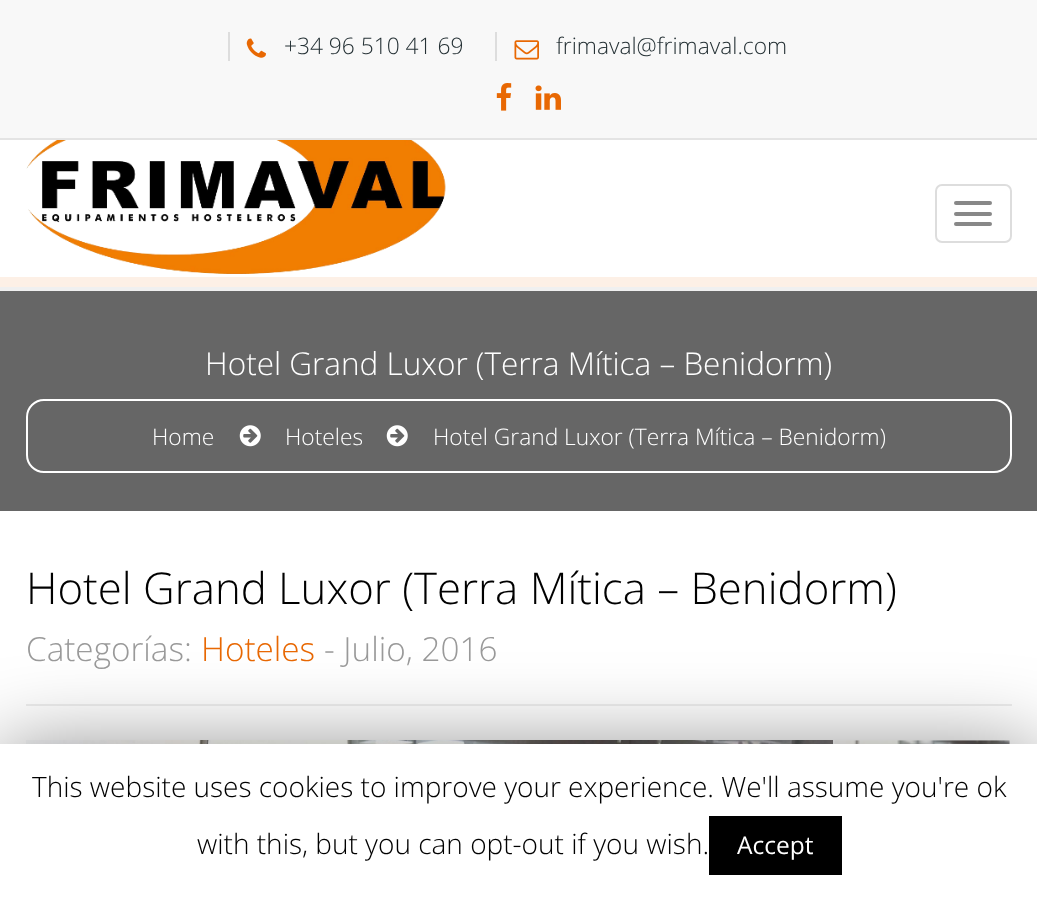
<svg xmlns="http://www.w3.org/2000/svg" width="1037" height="897">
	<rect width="100%" height="100%" fill="#FFFFFF" />
	<rect x="0" y="277" width="1037" height="10" fill="#FDF0E6" />
	<rect x="0" y="0" width="1037" height="138" fill="#F8F8F8" />
	<rect x="0" y="138" width="1037" height="2" fill="#E4E4E4" />
	<rect x="228" y="32" width="2" height="29" fill="#DDDDDD" />
	<image x="246" y="38" width="20" height="20" href="assets/img1.png" />
	<text x="284" y="54" font-family="Open Sans" font-size="22.75" font-weight="300" fill="#253135">+34 96 510 41 69</text>
	<rect x="495" y="32" width="2" height="29" fill="#DDDDDD" />
	<image x="514" y="40" width="25" height="20" href="assets/img2.png" />
	<text x="556" y="54" font-family="Open Sans" font-size="22.75" font-weight="300" fill="#253135">frimaval@frimaval.com</text>
	<image x="496" y="83" width="16" height="28" href="assets/img3.png" />
	<image x="535" y="85" width="26" height="25" href="assets/img4.png" />
	<image x="26" y="140" width="420" height="134" href="assets/img5.png" />
	<rect x="936" y="185" width="75" height="57" rx="6" fill="none" stroke="#DDDDDD" stroke-width="2" />
	<rect x="954" y="201" width="38" height="4" rx="2" fill="#888888" />
	<rect x="954" y="212" width="38" height="4" rx="2" fill="#888888" />
	<rect x="954" y="222" width="38" height="4" rx="2" fill="#888888" />
	<rect x="0" y="291" width="1037" height="220" fill="#666666" />
	<rect x="0" y="287" width="1037" height="4" fill="#F0F0F0" />
	<text x="205" y="375" font-family="Open Sans" font-size="31.5" font-weight="300" fill="#FFFFFF">Hotel Grand Luxor (Terra Mítica – Benidorm)</text>
	<rect x="27" y="400" width="984" height="72" rx="17" fill="none" stroke="#FFFFFF" stroke-width="2" />
	<text x="152" y="445" font-family="Open Sans" font-size="22.75" font-weight="300" fill="#FFFFFF">Home</text>
	<image x="239" y="425" width="22" height="22" href="assets/img6.png" />
	<text x="285" y="445" font-family="Open Sans" font-size="22.75" font-weight="300" fill="#FFFFFF">Hoteles</text>
	<image x="386" y="425" width="22" height="22" href="assets/img6.png" />
	<text x="433" y="445" font-family="Open Sans" font-size="22.75" font-weight="300" fill="#FFFFFF">Hotel Grand Luxor (Terra Mítica – Benidorm)</text>
	<text x="26" y="604" font-family="Open Sans" font-size="43.75" font-weight="300" fill="#000000">Hotel Grand Luxor (Terra Mítica – Benidorm)</text>
	<text x="26" y="661" font-family="Open Sans" font-size="33.25" font-weight="300" fill="#9A9A9A">Categorías:</text>
	<text x="201" y="661" font-family="Open Sans" font-size="33.25" font-weight="300" fill="#E86803">Hoteles</text>
	<text x="324" y="661" font-family="Open Sans" font-size="33.25" font-weight="300" fill="#9A9A9A">- Julio, 2016</text>
	<rect x="26" y="704" width="986" height="2" fill="#EEEEEE" />
	<image x="26" y="740" width="807" height="4" href="assets/img7.png" />
	<image x="834" y="740" width="176" height="4" href="assets/img8.png" />
	<rect x="0" y="753" width="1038" height="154" fill="#000000" fill-opacity="0.5" filter="blur(44px)" />
	<rect x="0" y="744" width="1037" height="153" fill="#FFFFFF" />
	<g font-family="Open Sans" font-size="28" font-weight="300" fill="#000000">
		<text x="32" y="797">This website uses cookies to improve your experience. We'll assume you're ok</text>
		<text x="197" y="854">with this, but you can opt-out if you wish.</text>
	</g>
	<rect x="709" y="816" width="133" height="59" fill="#000000" />
	<text x="737" y="854" font-family="Open Sans" font-size="24.5" fill="#FFFFFF">Accept</text>
</svg>
